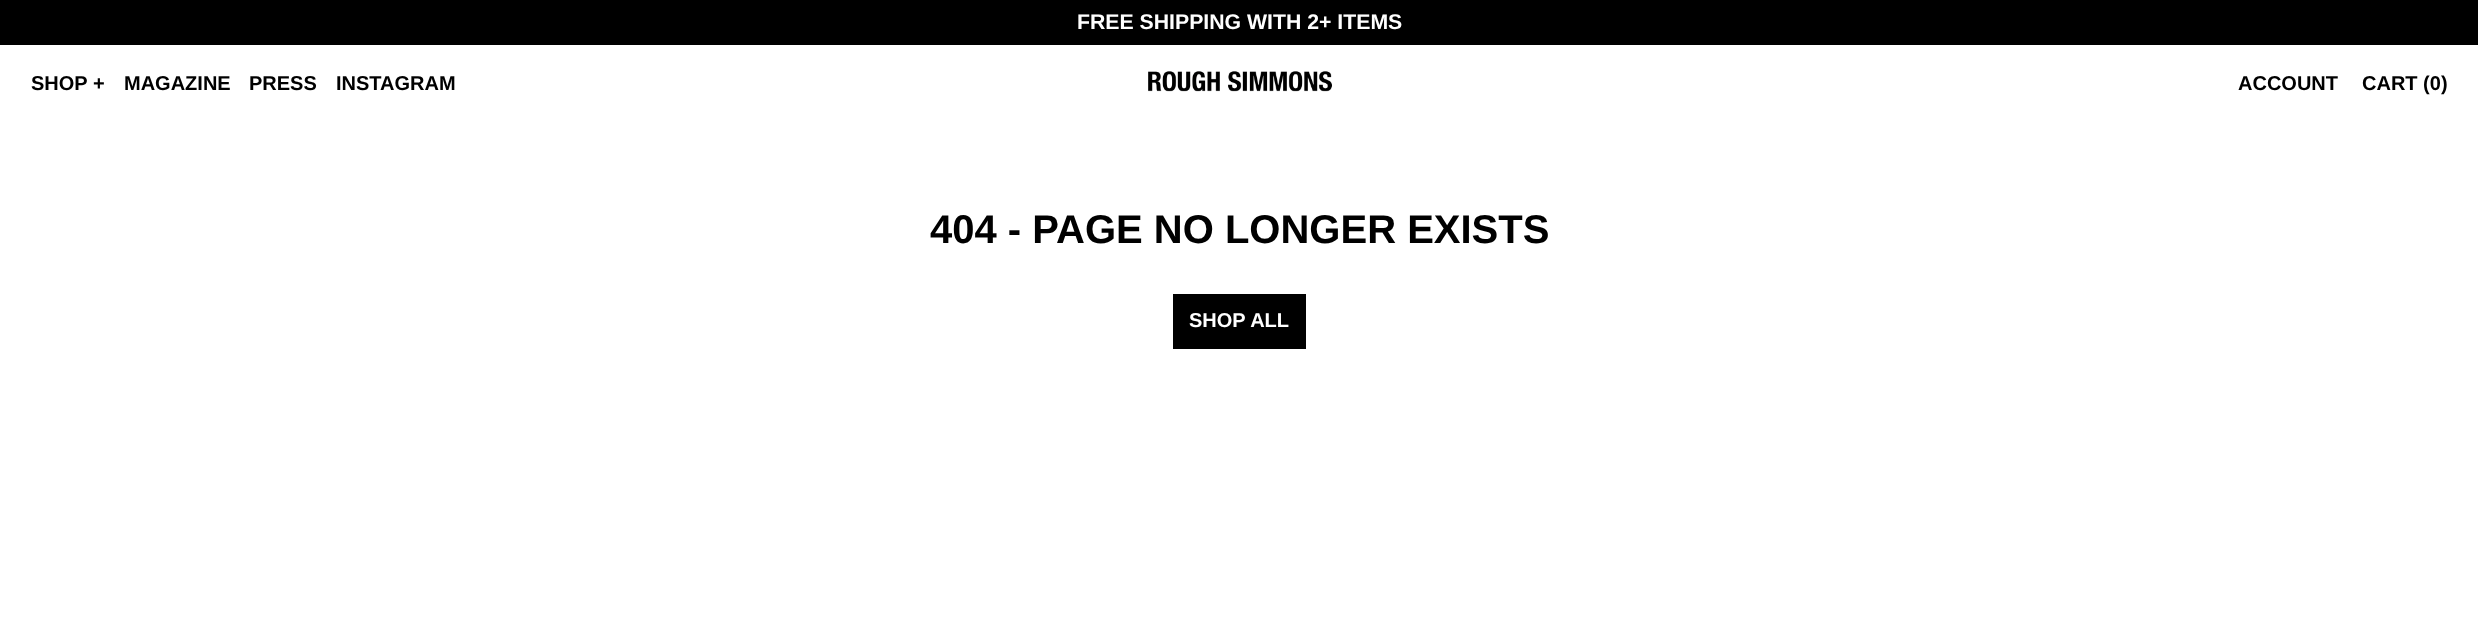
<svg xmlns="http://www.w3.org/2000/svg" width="2478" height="621">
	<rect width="100%" height="100%" fill="#FFFFFF" />
	<rect x="0" y="0" width="2478" height="45" fill="#000000" />
	<text x="1077" y="29" font-family="Liberation Sans" font-size="21.25" font-weight="700" fill="#FFFFFF">FREE SHIPPING WITH 2+ ITEMS</text>
	<g font-family="Liberation Sans" font-size="20" font-weight="700" fill="#000000">
		<text x="31" y="90">SHOP</text>
		<text x="93" y="90">+</text>
		<text x="124" y="90">MAGAZINE</text>
		<text x="249" y="90">PRESS</text>
		<text x="336" y="90">INSTAGRAM</text>
	</g>
	<image x="1148" y="71" width="184" height="21" href="assets/img1.png" />
	<g font-family="Liberation Sans" font-size="20" font-weight="700" fill="#000000">
		<text x="2238" y="90">ACCOUNT</text>
		<text x="2362" y="90">CART (0)</text>
	</g>
	<text x="930" y="243" font-family="Liberation Sans" font-size="40" font-weight="700" fill="#000000">404 - PAGE NO LONGER EXISTS</text>
	<rect x="1173" y="294" width="133" height="55" fill="#000000" />
	<text x="1189" y="327" font-family="Liberation Sans" font-size="20" font-weight="700" fill="#FFFFFF">SHOP ALL</text>
</svg>
